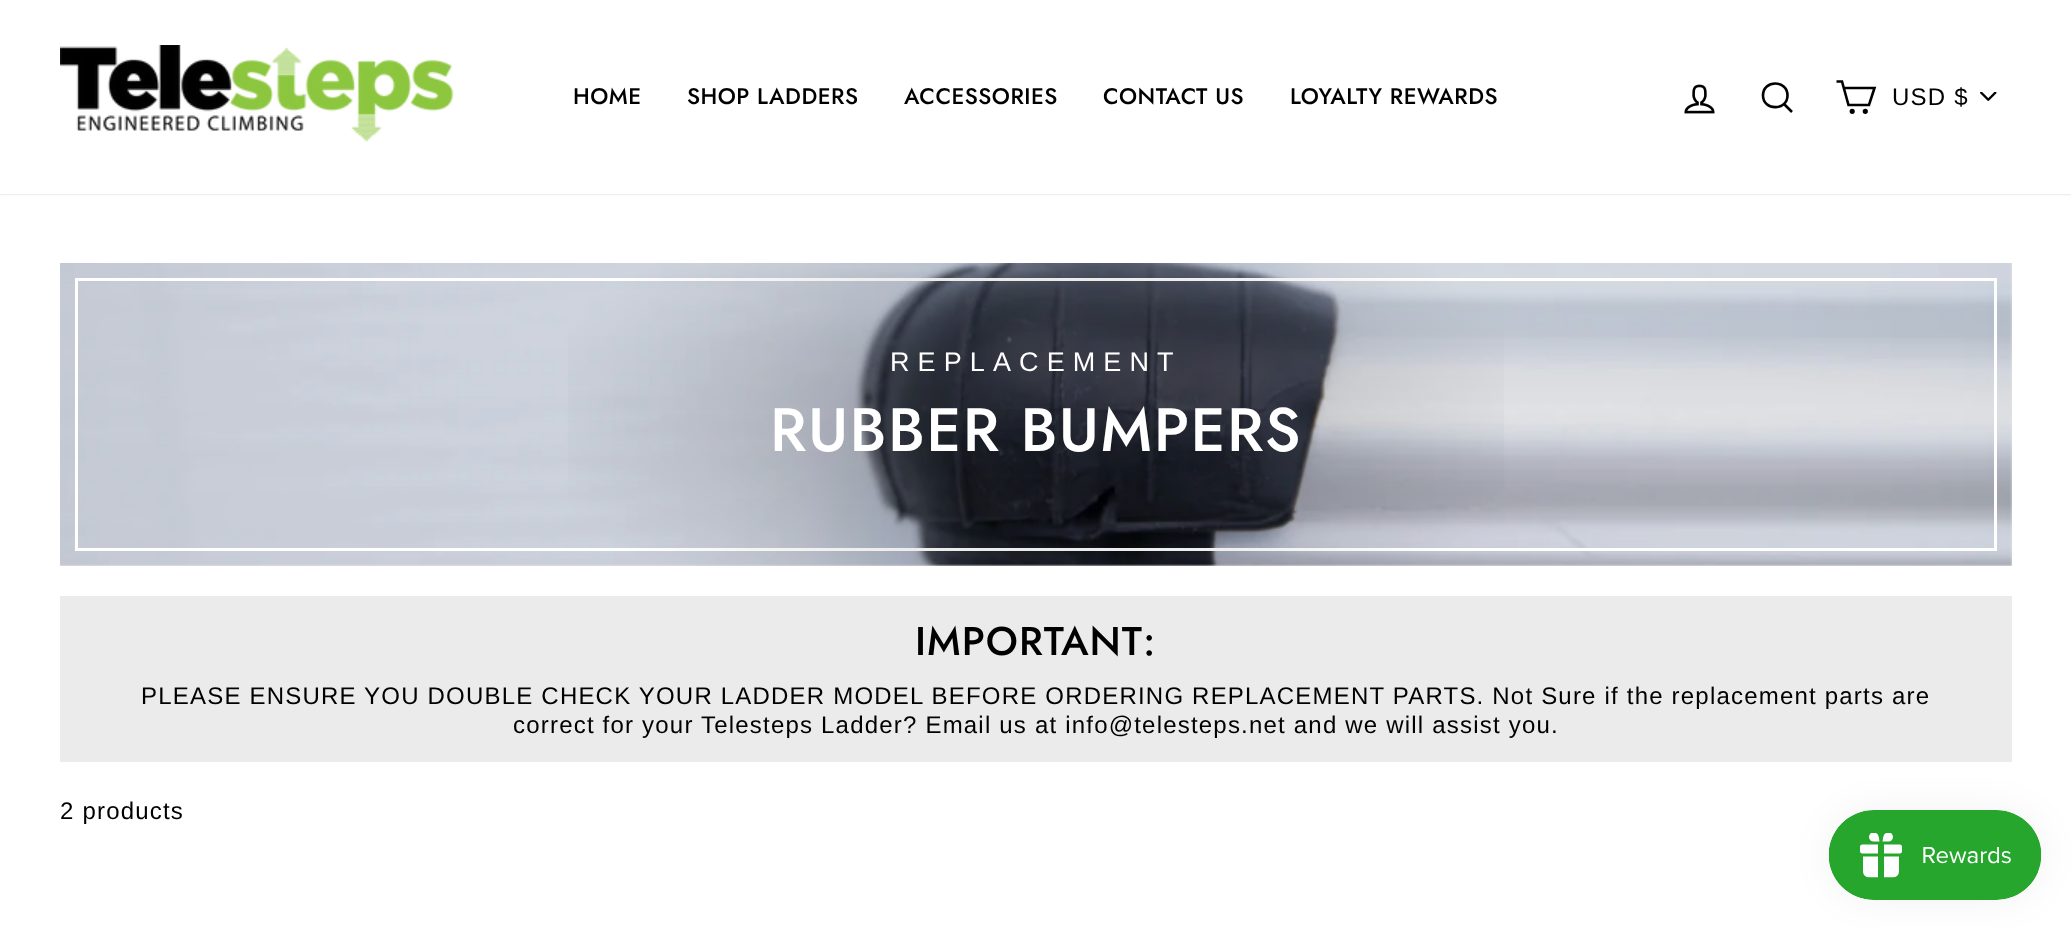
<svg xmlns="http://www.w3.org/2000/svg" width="2071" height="929">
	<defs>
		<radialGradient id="g1" gradientUnits="userSpaceOnUse" cx="0" cy="0" r="1" gradientTransform="matrix(869 0 0 375 1036 414)"><stop offset="0" stop-color="#000000" stop-opacity="0.2" /><stop offset="0.6" stop-color="#000000" stop-opacity="0" /></radialGradient>
	</defs>
	<rect width="100%" height="100%" fill="#FFFFFF" />
	<rect x="60" y="263" width="1952" height="303" fill="#E6E6E6" />
	<rect x="0" y="0" width="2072" height="194" fill="#000000" fill-opacity="0.2" filter="blur(1px)" />
	<rect x="0" y="0" width="2071" height="194" fill="#FFFFFF" />
	<image x="60" y="45" width="394" height="97" href="assets/img1.png" />
	<g font-family="Jost" font-size="22.5" font-weight="500" letter-spacing="0.5" fill="#000000">
		<text x="573" y="104">HOME</text>
		<text x="687" y="104">SHOP LADDERS</text>
		<text x="904" y="104">ACCESSORIES</text>
		<text x="1103" y="104">CONTACT US</text>
		<text x="1290" y="104">LOYALTY REWARDS</text>
	</g>
	<image x="1684" y="84" width="31" height="30" href="assets/img2.png" />
	<path d="M1787.5 95.5C1787.5 111 1763 111 1763 95.5C1763 79.5 1787.5 79.5 1787.5 95.5ZM1792 112L1784 104" fill="none" stroke="#000000" stroke-width="2.6" />
	<path d="M1843.5 88H1874.5L1869 105H1848.5L1842 81.5H1836.5" fill="none" stroke="#000000" stroke-width="2.6" />
	<circle cx="1852.2" cy="111.3" r="1.3" fill="none" stroke="#000000" stroke-width="2.6" />
	<circle cx="1865.3" cy="111.3" r="1.3" fill="none" stroke="#000000" stroke-width="2.6" />
	<image x="1980" y="92" width="17" height="9" href="assets/img3.png" />
	<text x="1892" y="105" font-family="Liberation Sans" font-size="24" letter-spacing="1.2" fill="#000000">USD $</text>
	<image x="60" y="263" width="1952" height="303" href="assets/img4.png" />
	<rect x="76.5" y="279.5" width="1919" height="270" fill="none" stroke="#FFFFFF" stroke-width="3" />
	<rect x="568" y="263" width="936" height="303" fill="url(#g1)" />
	<text x="890" y="371" font-family="Liberation Sans" font-size="27" letter-spacing="8.1" fill="#FFFFFF">REPLACEMENT</text>
	<text x="770" y="451" font-family="Jost" font-size="61.25" font-weight="500" letter-spacing="1.5" fill="#FFFFFF">RUBBER BUMPERS</text>
	<rect x="60" y="596" width="1952" height="166" fill="#EBEBEB" />
	<text x="915" y="655" font-family="Jost" font-size="40" font-weight="500" letter-spacing="1" fill="#000000">IMPORTANT:</text>
	<g font-family="Liberation Sans" font-size="24" letter-spacing="1.2" fill="#000000">
		<text x="141" y="704">PLEASE ENSURE YOU DOUBLE CHECK YOUR LADDER MODEL BEFORE ORDERING REPLACEMENT PARTS. Not Sure if the replacement parts are</text>
		<text x="513" y="733">correct for your Telesteps Ladder? Email us at info@telesteps.net and we will assist you.</text>
		<text x="60" y="819">2 products</text>
	</g>
	<rect x="1829" y="810" width="213" height="90" rx="45" fill="#000000" fill-opacity="0.05" filter="blur(19px)" />
	<image x="1828" y="810" width="214" height="90" href="assets/img5.png" />
</svg>
